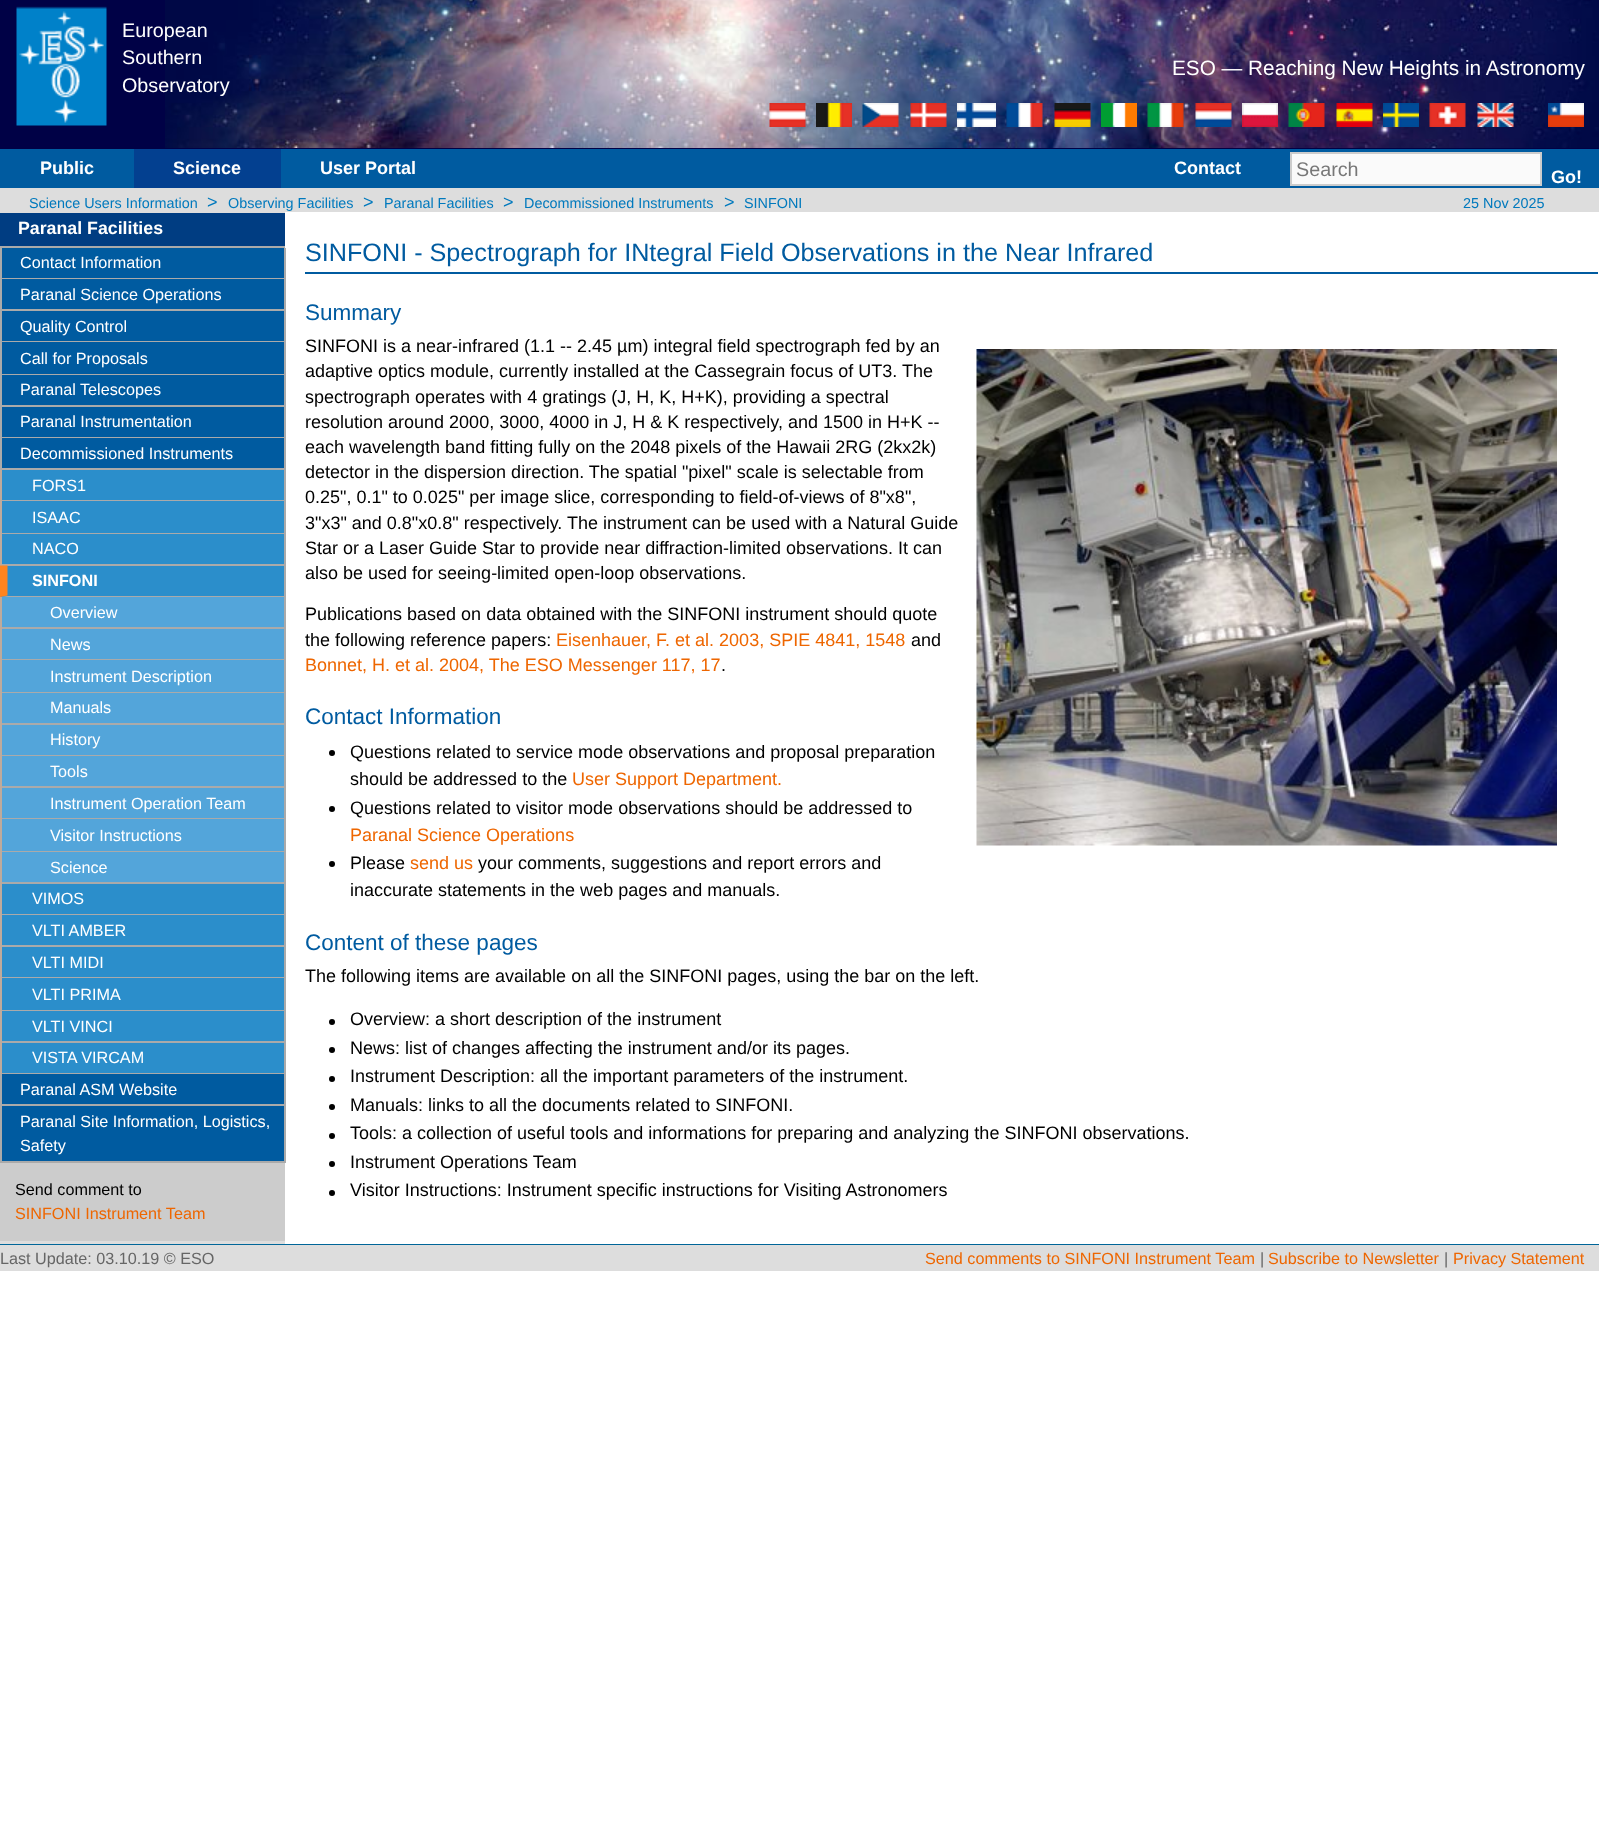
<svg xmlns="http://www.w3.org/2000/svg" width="1599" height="1834">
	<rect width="100%" height="100%" fill="#FFFFFF" />
	<rect x="0" y="212" width="285" height="1032" fill="#DDDDDD" />
	<rect x="0" y="0" width="1599" height="149" fill="#000146" />
	<image x="165" y="0" width="1434" height="148" href="assets/img1.png" />
	<image x="16" y="6" width="91" height="120" href="assets/img2.png" />
	<g font-family="Liberation Sans" font-size="19.75" fill="#FFFFFF">
		<text x="122" y="37">European</text>
		<text x="122" y="64">Southern</text>
		<text x="122" y="92">Observatory</text>
	</g>
	<text x="1172" y="75" font-family="Liberation Sans" font-size="20.75" fill="#FFFFFF">ESO — Reaching New Heights in Astronomy</text>
	<image x="769" y="103" width="37" height="24" href="assets/img3.png" />
	<image x="816" y="103" width="36" height="24" href="assets/img4.png" />
	<image x="862" y="103" width="37" height="24" href="assets/img5.png" />
	<image x="910" y="103" width="37" height="24" href="assets/img6.png" />
	<image x="957" y="103" width="39" height="24" href="assets/img7.png" />
	<image x="1006" y="103" width="37" height="24" href="assets/img8.png" />
	<image x="1054" y="103" width="37" height="24" href="assets/img9.png" />
	<image x="1101" y="103" width="36" height="24" href="assets/img10.png" />
	<image x="1147" y="103" width="37" height="24" href="assets/img11.png" />
	<image x="1195" y="103" width="37" height="24" href="assets/img12.png" />
	<image x="1242" y="103" width="36" height="24" href="assets/img13.png" />
	<image x="1288" y="103" width="37" height="24" href="assets/img14.png" />
	<image x="1336" y="103" width="37" height="24" href="assets/img15.png" />
	<image x="1383" y="103" width="36" height="24" href="assets/img16.png" />
	<image x="1429" y="103" width="37" height="24" href="assets/img17.png" />
	<image x="1477" y="103" width="37" height="24" href="assets/img18.png" />
	<image x="1548" y="103" width="36" height="24" href="assets/img19.png" />
	<rect x="0" y="149" width="1599" height="39" fill="#005BA0" />
	<text x="40" y="174" font-family="Liberation Sans" font-size="18" font-weight="700" fill="#FFFFFF">Public</text>
	<rect x="134" y="149" width="147" height="39" fill="#034090" />
	<g font-family="Liberation Sans" font-size="18" font-weight="700" fill="#FFFFFF">
		<text x="173" y="174">Science</text>
		<text x="320" y="174">User Portal</text>
		<text x="1174" y="174">Contact</text>
	</g>
	<rect x="1291" y="153" width="250" height="32" fill="#FAFAFA" stroke="#CCCCCC" stroke-width="2" />
	<text x="1296" y="176" font-family="Liberation Sans" font-size="19.75" fill="#777777">Search</text>
	<text x="1551" y="183" font-family="Liberation Sans" font-size="18" font-weight="700" fill="#FFFFFF">Go!</text>
	<rect x="0" y="188" width="1599" height="24" fill="#DDDDDD" />
	<text x="29" y="208" font-family="Liberation Sans" font-size="14.4" fill="#0079BD">Science Users Information</text>
	<text x="207" y="208" font-family="Liberation Sans" font-size="18" fill="#0079BD">&gt;</text>
	<text x="228" y="208" font-family="Liberation Sans" font-size="14.4" fill="#0079BD">Observing Facilities</text>
	<text x="363" y="208" font-family="Liberation Sans" font-size="18" fill="#0079BD">&gt;</text>
	<text x="384" y="208" font-family="Liberation Sans" font-size="14.4" fill="#0079BD">Paranal Facilities</text>
	<text x="503" y="208" font-family="Liberation Sans" font-size="18" fill="#0079BD">&gt;</text>
	<text x="524" y="208" font-family="Liberation Sans" font-size="14.4" fill="#0079BD">Decommissioned Instruments</text>
	<text x="724" y="208" font-family="Liberation Sans" font-size="18" fill="#0079BD">&gt;</text>
	<g font-family="Liberation Sans" font-size="14.4" fill="#0079BD">
		<text x="744" y="208">SINFONI</text>
		<text x="1463" y="208">25 Nov 2025</text>
	</g>
	<rect x="0" y="213" width="285" height="33" fill="#003D82" />
	<rect x="0" y="246" width="285" height="2" fill="#AAAAAA" />
	<text x="18" y="234" font-family="Liberation Sans" font-size="17.75" font-weight="700" fill="#FFFFFF">Paranal Facilities</text>
	<rect x="2" y="248" width="282" height="30" fill="#005BA0" />
	<rect x="284" y="248" width="2" height="915" fill="#AAAAAA" />
	<rect x="0" y="278" width="285" height="1" fill="#AAAAAA" />
	<rect x="0" y="248" width="2" height="31" fill="#AAAAAA" />
	<text x="20" y="268" font-family="Liberation Sans" font-size="16.2" fill="#FFFFFF">Contact Information</text>
	<rect x="2" y="279" width="282" height="30" fill="#005BA0" />
	<rect x="0" y="309" width="285" height="2" fill="#AAAAAA" />
	<rect x="0" y="279" width="2" height="32" fill="#AAAAAA" />
	<text x="20" y="300" font-family="Liberation Sans" font-size="16.2" fill="#FFFFFF">Paranal Science Operations</text>
	<rect x="2" y="311" width="282" height="30" fill="#005BA0" />
	<rect x="0" y="341" width="285" height="1" fill="#AAAAAA" />
	<rect x="0" y="311" width="2" height="31" fill="#AAAAAA" />
	<text x="20" y="332" font-family="Liberation Sans" font-size="16.2" fill="#FFFFFF">Quality Control</text>
	<rect x="2" y="342" width="282" height="32" fill="#005BA0" />
	<rect x="0" y="374" width="285" height="1" fill="#AAAAAA" />
	<rect x="0" y="342" width="2" height="33" fill="#AAAAAA" />
	<text x="20" y="364" font-family="Liberation Sans" font-size="16.2" fill="#FFFFFF">Call for Proposals</text>
	<rect x="2" y="375" width="282" height="30" fill="#005BA0" />
	<rect x="0" y="405" width="285" height="2" fill="#AAAAAA" />
	<rect x="0" y="375" width="2" height="32" fill="#AAAAAA" />
	<text x="20" y="395" font-family="Liberation Sans" font-size="16.2" fill="#FFFFFF">Paranal Telescopes</text>
	<rect x="2" y="407" width="282" height="30" fill="#005BA0" />
	<rect x="0" y="437" width="285" height="1" fill="#AAAAAA" />
	<rect x="0" y="407" width="2" height="31" fill="#AAAAAA" />
	<text x="20" y="427" font-family="Liberation Sans" font-size="16.2" fill="#FFFFFF">Paranal Instrumentation</text>
	<rect x="2" y="438" width="282" height="30" fill="#005BA0" />
	<rect x="0" y="468" width="285" height="2" fill="#AAAAAA" />
	<rect x="0" y="438" width="2" height="32" fill="#AAAAAA" />
	<text x="20" y="459" font-family="Liberation Sans" font-size="16.2" fill="#FFFFFF">Decommissioned Instruments</text>
	<rect x="2" y="470" width="282" height="30" fill="#2B8ECB" />
	<rect x="0" y="500" width="285" height="1" fill="#AAAAAA" />
	<rect x="0" y="470" width="2" height="31" fill="#BFAA9B" />
	<text x="32" y="491" font-family="Liberation Sans" font-size="16.2" fill="#FFFFFF">FORS1</text>
	<rect x="2" y="501" width="282" height="32" fill="#2B8ECB" />
	<rect x="0" y="533" width="285" height="1" fill="#AAAAAA" />
	<rect x="0" y="501" width="2" height="33" fill="#BFAA9B" />
	<text x="32" y="523" font-family="Liberation Sans" font-size="16.2" fill="#FFFFFF">ISAAC</text>
	<rect x="2" y="534" width="282" height="30" fill="#2B8ECB" />
	<rect x="0" y="564" width="285" height="2" fill="#AAAAAA" />
	<rect x="0" y="534" width="2" height="32" fill="#BFAA9B" />
	<text x="32" y="554" font-family="Liberation Sans" font-size="16.2" fill="#FFFFFF">NACO</text>
	<rect x="0" y="566" width="284" height="31" fill="#2B8ECB" />
	<path d="M285 597H0L8 596H284Z" fill="#AAAAAA" />
	<path d="M0 597V565.5H7.5V595.5Z" fill="#FF841E" />
	<text x="32" y="586" font-family="Liberation Sans" font-size="16.2" font-weight="700" fill="#FFFFFF">SINFONI</text>
	<rect x="2" y="597" width="282" height="30" fill="#53A5DA" />
	<rect x="0" y="627" width="285" height="2" fill="#AAAAAA" />
	<rect x="0" y="597" width="2" height="32" fill="#BFAA9B" />
	<text x="50" y="618" font-family="Liberation Sans" font-size="16.2" fill="#FFFFFF">Overview</text>
	<rect x="2" y="629" width="282" height="30" fill="#53A5DA" />
	<rect x="0" y="659" width="285" height="1" fill="#AAAAAA" />
	<rect x="0" y="629" width="2" height="31" fill="#BFAA9B" />
	<text x="50" y="650" font-family="Liberation Sans" font-size="16.2" fill="#FFFFFF">News</text>
	<rect x="2" y="660" width="282" height="32" fill="#53A5DA" />
	<rect x="0" y="692" width="285" height="1" fill="#AAAAAA" />
	<rect x="0" y="660" width="2" height="33" fill="#BFAA9B" />
	<text x="50" y="682" font-family="Liberation Sans" font-size="16.2" fill="#FFFFFF">Instrument Description</text>
	<rect x="2" y="693" width="282" height="30" fill="#53A5DA" />
	<rect x="0" y="723" width="285" height="2" fill="#AAAAAA" />
	<rect x="0" y="693" width="2" height="32" fill="#BFAA9B" />
	<text x="50" y="713" font-family="Liberation Sans" font-size="16.2" fill="#FFFFFF">Manuals</text>
	<rect x="2" y="725" width="282" height="30" fill="#53A5DA" />
	<rect x="0" y="755" width="285" height="1" fill="#AAAAAA" />
	<rect x="0" y="725" width="2" height="31" fill="#BFAA9B" />
	<text x="50" y="745" font-family="Liberation Sans" font-size="16.2" fill="#FFFFFF">History</text>
	<rect x="2" y="756" width="282" height="30" fill="#53A5DA" />
	<rect x="0" y="786" width="285" height="2" fill="#AAAAAA" />
	<rect x="0" y="756" width="2" height="32" fill="#BFAA9B" />
	<text x="50" y="777" font-family="Liberation Sans" font-size="16.2" fill="#FFFFFF">Tools</text>
	<rect x="2" y="788" width="282" height="30" fill="#53A5DA" />
	<rect x="0" y="818" width="285" height="1" fill="#AAAAAA" />
	<rect x="0" y="788" width="2" height="31" fill="#BFAA9B" />
	<text x="50" y="809" font-family="Liberation Sans" font-size="16.2" fill="#FFFFFF">Instrument Operation Team</text>
	<rect x="2" y="819" width="282" height="32" fill="#53A5DA" />
	<rect x="0" y="851" width="285" height="1" fill="#AAAAAA" />
	<rect x="0" y="819" width="2" height="33" fill="#BFAA9B" />
	<text x="50" y="841" font-family="Liberation Sans" font-size="16.2" fill="#FFFFFF">Visitor Instructions</text>
	<rect x="2" y="852" width="282" height="30" fill="#53A5DA" />
	<rect x="0" y="882" width="285" height="2" fill="#AAAAAA" />
	<rect x="0" y="852" width="2" height="32" fill="#BFAA9B" />
	<text x="50" y="873" font-family="Liberation Sans" font-size="16.2" fill="#FFFFFF">Science</text>
	<rect x="2" y="884" width="282" height="30" fill="#2B8ECB" />
	<rect x="0" y="914" width="285" height="1" fill="#AAAAAA" />
	<rect x="0" y="884" width="2" height="31" fill="#BFAA9B" />
	<text x="32" y="904" font-family="Liberation Sans" font-size="16.2" fill="#FFFFFF">VIMOS</text>
	<rect x="2" y="915" width="282" height="30" fill="#2B8ECB" />
	<rect x="0" y="945" width="285" height="2" fill="#AAAAAA" />
	<rect x="0" y="915" width="2" height="32" fill="#BFAA9B" />
	<text x="32" y="936" font-family="Liberation Sans" font-size="16.2" fill="#FFFFFF">VLTI AMBER</text>
	<rect x="2" y="947" width="282" height="30" fill="#2B8ECB" />
	<rect x="0" y="977" width="285" height="1" fill="#AAAAAA" />
	<rect x="0" y="947" width="2" height="31" fill="#BFAA9B" />
	<text x="32" y="968" font-family="Liberation Sans" font-size="16.2" fill="#FFFFFF">VLTI MIDI</text>
	<rect x="2" y="978" width="282" height="32" fill="#2B8ECB" />
	<rect x="0" y="1010" width="285" height="1" fill="#AAAAAA" />
	<rect x="0" y="978" width="2" height="33" fill="#BFAA9B" />
	<text x="32" y="1000" font-family="Liberation Sans" font-size="16.2" fill="#FFFFFF">VLTI PRIMA</text>
	<rect x="2" y="1011" width="282" height="30" fill="#2B8ECB" />
	<rect x="0" y="1041" width="285" height="2" fill="#AAAAAA" />
	<rect x="0" y="1011" width="2" height="32" fill="#BFAA9B" />
	<text x="32" y="1032" font-family="Liberation Sans" font-size="16.2" fill="#FFFFFF">VLTI VINCI</text>
	<rect x="2" y="1043" width="282" height="30" fill="#2B8ECB" />
	<rect x="0" y="1073" width="285" height="1" fill="#AAAAAA" />
	<rect x="0" y="1043" width="2" height="31" fill="#BFAA9B" />
	<text x="32" y="1063" font-family="Liberation Sans" font-size="16.2" fill="#FFFFFF">VISTA VIRCAM</text>
	<rect x="2" y="1074" width="282" height="30" fill="#005BA0" />
	<rect x="0" y="1104" width="285" height="2" fill="#AAAAAA" />
	<rect x="0" y="1074" width="2" height="32" fill="#AAAAAA" />
	<text x="20" y="1095" font-family="Liberation Sans" font-size="16.2" fill="#FFFFFF">Paranal ASM Website</text>
	<rect x="2" y="1106" width="282" height="55" fill="#005BA0" />
	<rect x="0" y="1161" width="285" height="2" fill="#AAAAAA" />
	<rect x="0" y="1106" width="2" height="57" fill="#AAAAAA" />
	<g font-family="Liberation Sans" font-size="16.2" fill="#FFFFFF">
		<text x="20" y="1127">Paranal Site Information, Logistics,</text>
		<text x="20" y="1151">Safety</text>
	</g>
	<rect x="0" y="1163" width="285" height="78" fill="#CCCCCC" />
	<text x="15" y="1195" font-family="Liberation Sans" font-size="16.2" fill="#000000">Send comment to</text>
	<text x="15" y="1219" font-family="Liberation Sans" font-size="16.2" fill="#EE6600">SINFONI Instrument Team</text>
	<rect x="305" y="272" width="1293" height="2" fill="#005BA0" />
	<text x="305" y="261" font-family="Liberation Sans" font-size="25.2" fill="#005BA0">SINFONI - Spectrograph for INtegral Field Observations in the Near Infrared</text>
	<text x="305" y="320" font-family="Liberation Sans" font-size="22.5" fill="#005BA0">Summary</text>
	<g font-family="Liberation Sans" font-size="18" fill="#000000">
		<text x="305" y="352">SINFONI is a near-infrared (1.1 -- 2.45 µm) integral field spectrograph fed by an</text>
		<text x="305" y="377">adaptive optics module, currently installed at the Cassegrain focus of UT3. The</text>
	</g>
	<image x="976" y="349" width="581" height="497" href="assets/img20.png" />
	<g font-family="Liberation Sans" font-size="18" fill="#000000">
		<text x="305" y="403">spectrograph operates with 4 gratings (J, H, K, H+K), providing a spectral</text>
		<text x="305" y="428">resolution around 2000, 3000, 4000 in J, H &amp; K respectively, and 1500 in H+K --</text>
		<text x="305" y="453">each wavelength band fitting fully on the 2048 pixels of the Hawaii 2RG (2kx2k)</text>
		<text x="305" y="478">detector in the dispersion direction. The spatial "pixel" scale is selectable from</text>
		<text x="305" y="503">0.25", 0.1" to 0.025" per image slice, corresponding to field-of-views of 8"x8",</text>
		<text x="305" y="529">3"x3" and 0.8"x0.8" respectively. The instrument can be used with a Natural Guide</text>
		<text x="305" y="554">Star or a Laser Guide Star to provide near diffraction-limited observations. It can</text>
		<text x="305" y="579">also be used for seeing-limited open-loop observations.</text>
		<text x="305" y="620">Publications based on data obtained with the SINFONI instrument should quote</text>
		<text x="305" y="646">the following reference papers:</text>
	</g>
	<text x="556" y="646" font-family="Liberation Sans" font-size="18" fill="#EE6600">Eisenhauer, F. et al. 2003, SPIE 4841, 1548</text>
	<text x="911" y="646" font-family="Liberation Sans" font-size="18" fill="#000000">and</text>
	<text x="305" y="671" font-family="Liberation Sans" font-size="18" fill="#EE6600">Bonnet, H. et al. 2004, The ESO Messenger 117, 17</text>
	<text x="721" y="671" font-family="Liberation Sans" font-size="18" fill="#000000">.</text>
	<text x="305" y="724" font-family="Liberation Sans" font-size="22.5" fill="#005BA0">Contact Information</text>
	<circle cx="332" cy="753" r="3" fill="#000000" />
	<g font-family="Liberation Sans" font-size="18" fill="#000000">
		<text x="350" y="758">Questions related to service mode observations and proposal preparation</text>
		<text x="350" y="785">should be addressed to the</text>
	</g>
	<text x="572" y="785" font-family="Liberation Sans" font-size="18" fill="#EE6600">User Support Department.</text>
	<circle cx="332" cy="809" r="3" fill="#000000" />
	<text x="350" y="814" font-family="Liberation Sans" font-size="18" fill="#000000">Questions related to visitor mode observations should be addressed to</text>
	<text x="350" y="841" font-family="Liberation Sans" font-size="18" fill="#EE6600">Paranal Science Operations</text>
	<circle cx="332" cy="864" r="3" fill="#000000" />
	<text x="350" y="869" font-family="Liberation Sans" font-size="18" fill="#000000">Please</text>
	<text x="410" y="869" font-family="Liberation Sans" font-size="18" fill="#EE6600">send us</text>
	<g font-family="Liberation Sans" font-size="18" fill="#000000">
		<text x="478" y="869">your comments, suggestions and report errors and</text>
		<text x="350" y="896">inaccurate statements in the web pages and manuals.</text>
	</g>
	<text x="305" y="950" font-family="Liberation Sans" font-size="22.5" fill="#005BA0">Content of these pages</text>
	<text x="305" y="982" font-family="Liberation Sans" font-size="18" fill="#000000">The following items are available on all the SINFONI pages, using the bar on the left.</text>
	<circle cx="332" cy="1022" r="3" fill="#000000" />
	<text x="350" y="1025" font-family="Liberation Sans" font-size="18" fill="#000000">Overview: a short description of the instrument</text>
	<circle cx="332" cy="1050" r="3" fill="#000000" />
	<text x="350" y="1054" font-family="Liberation Sans" font-size="18" fill="#000000">News: list of changes affecting the instrument and/or its pages.</text>
	<circle cx="332" cy="1079" r="3" fill="#000000" />
	<text x="350" y="1082" font-family="Liberation Sans" font-size="18" fill="#000000">Instrument Description: all the important parameters of the instrument.</text>
	<circle cx="332" cy="1107" r="3" fill="#000000" />
	<text x="350" y="1111" font-family="Liberation Sans" font-size="18" fill="#000000">Manuals: links to all the documents related to SINFONI.</text>
	<circle cx="332" cy="1136" r="3" fill="#000000" />
	<text x="350" y="1139" font-family="Liberation Sans" font-size="18" fill="#000000">Tools: a collection of useful tools and informations for preparing and analyzing the SINFONI observations.</text>
	<circle cx="332" cy="1164" r="3" fill="#000000" />
	<text x="350" y="1168" font-family="Liberation Sans" font-size="18" fill="#000000">Instrument Operations Team</text>
	<circle cx="332" cy="1193" r="3" fill="#000000" />
	<text x="350" y="1196" font-family="Liberation Sans" font-size="18" fill="#000000">Visitor Instructions: Instrument specific instructions for Visiting Astronomers</text>
	<rect x="0" y="1244" width="1599" height="1" fill="#006699" />
	<rect x="0" y="1245" width="1599" height="26" fill="#DDDDDD" />
	<text x="0" y="1264" font-family="Liberation Sans" font-size="16.2" fill="#666666">Last Update: 03.10.19 © ESO</text>
	<text x="925" y="1264" font-family="Liberation Sans" font-size="16.2" fill="#EE6600">Send comments to SINFONI Instrument Team</text>
	<text x="1260" y="1264" font-family="Liberation Sans" font-size="16.2" fill="#666666">|</text>
	<text x="1268" y="1264" font-family="Liberation Sans" font-size="16.2" fill="#EE6600">Subscribe to Newsletter</text>
	<text x="1444" y="1264" font-family="Liberation Sans" font-size="16.2" fill="#666666">|</text>
	<text x="1453" y="1264" font-family="Liberation Sans" font-size="16.2" fill="#EE6600">Privacy Statement</text>
</svg>
